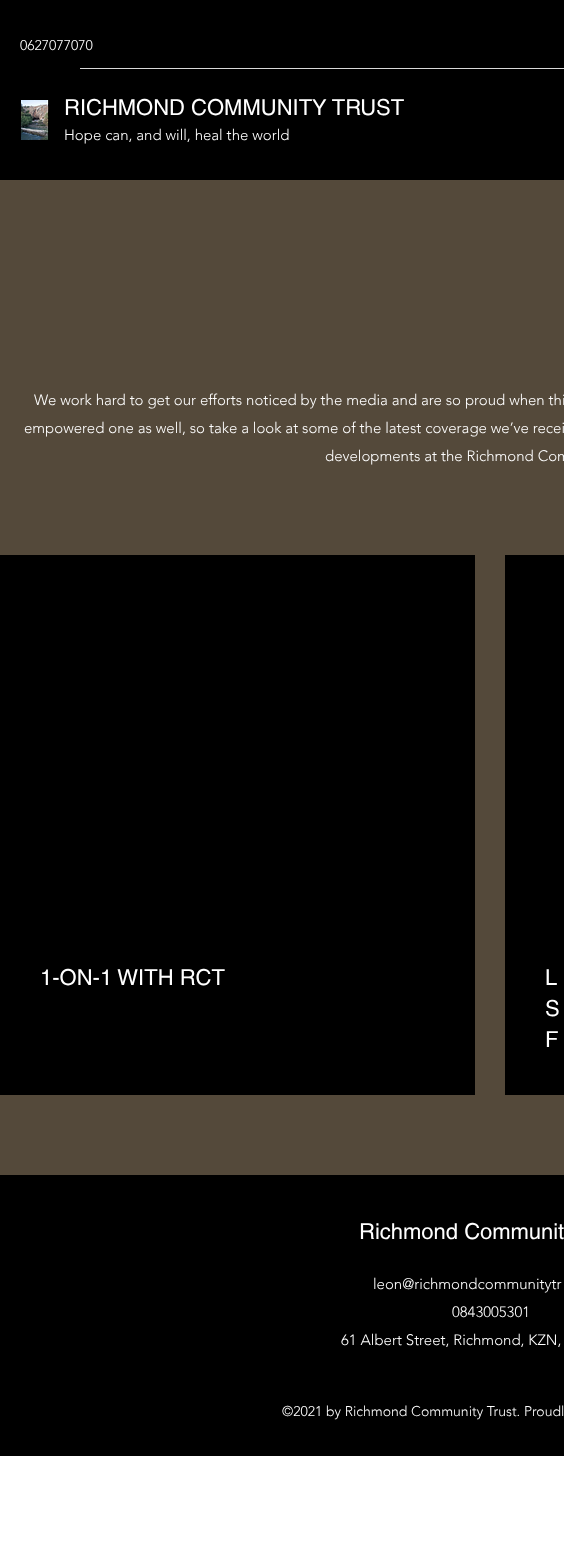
<svg xmlns="http://www.w3.org/2000/svg" width="564" height="1547">
	<rect width="100%" height="100%" fill="#FFFFFF" />
	<rect x="0" y="0" width="564" height="180" fill="#000000" />
	<text x="20" y="50" font-family="'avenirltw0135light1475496'" font-size="14" font-weight="300" fill="#FFFFFF">0627077070</text>
	<rect x="80" y="68" width="484" height="1" fill="#D9D9D9" />
	<image x="20" y="100" width="29" height="40" href="assets/img1.png" />
	<text x="64" y="115" font-family="helvetica" font-size="22" fill="#FFFFFF">RICHMOND COMMUNITY TRUST</text>
	<text x="64" y="140" font-family="'avenirltw0135light1475496'" font-size="15" font-weight="300" fill="#FFFFFF">Hope can, and will, heal the world</text>
	<rect x="0" y="180" width="564" height="995" fill="#54493A" />
	<g font-family="'avenirltw0135light1475496'" font-size="15" font-weight="300" fill="#FFFFFF">
		<text x="34" y="405">We work hard to get our efforts noticed by the media and are so proud when thi</text>
		<text x="24" y="433">empowered one as well, so take a look at some of the latest coverage we’ve recei</text>
		<text x="325" y="461">developments at the Richmond Com</text>
	</g>
	<rect x="0" y="555" width="475" height="540" fill="#000000" />
	<text x="40" y="985" font-family="helvetica" font-size="22" fill="#FFFFFF">1-ON-1 WITH RCT</text>
	<rect x="505" y="555" width="59" height="540" fill="#000000" />
	<g font-family="helvetica" font-size="22" fill="#FFFFFF">
		<text x="545" y="985">L</text>
		<text x="545" y="1016">S</text>
		<text x="545" y="1047">F</text>
	</g>
	<rect x="0" y="1175" width="564" height="281" fill="#000000" />
	<text x="359" y="1239" font-family="helvetica" font-size="22" fill="#FFFFFF">Richmond Communit</text>
	<g font-family="'avenirltw0135light1475496'" font-size="15" font-weight="300" fill="#FFFFFF">
		<text x="373" y="1289">leon@richmondcommunitytr</text>
		<text x="452" y="1317">0843005301</text>
		<text x="341" y="1345">61 Albert Street, Richmond, KZN,</text>
	</g>
	<text x="282" y="1416" font-family="'avenirltw0135light1475496'" font-size="14" font-weight="300" fill="#FFFFFF">©2021 by Richmond Community Trust. Proudl</text>
</svg>
